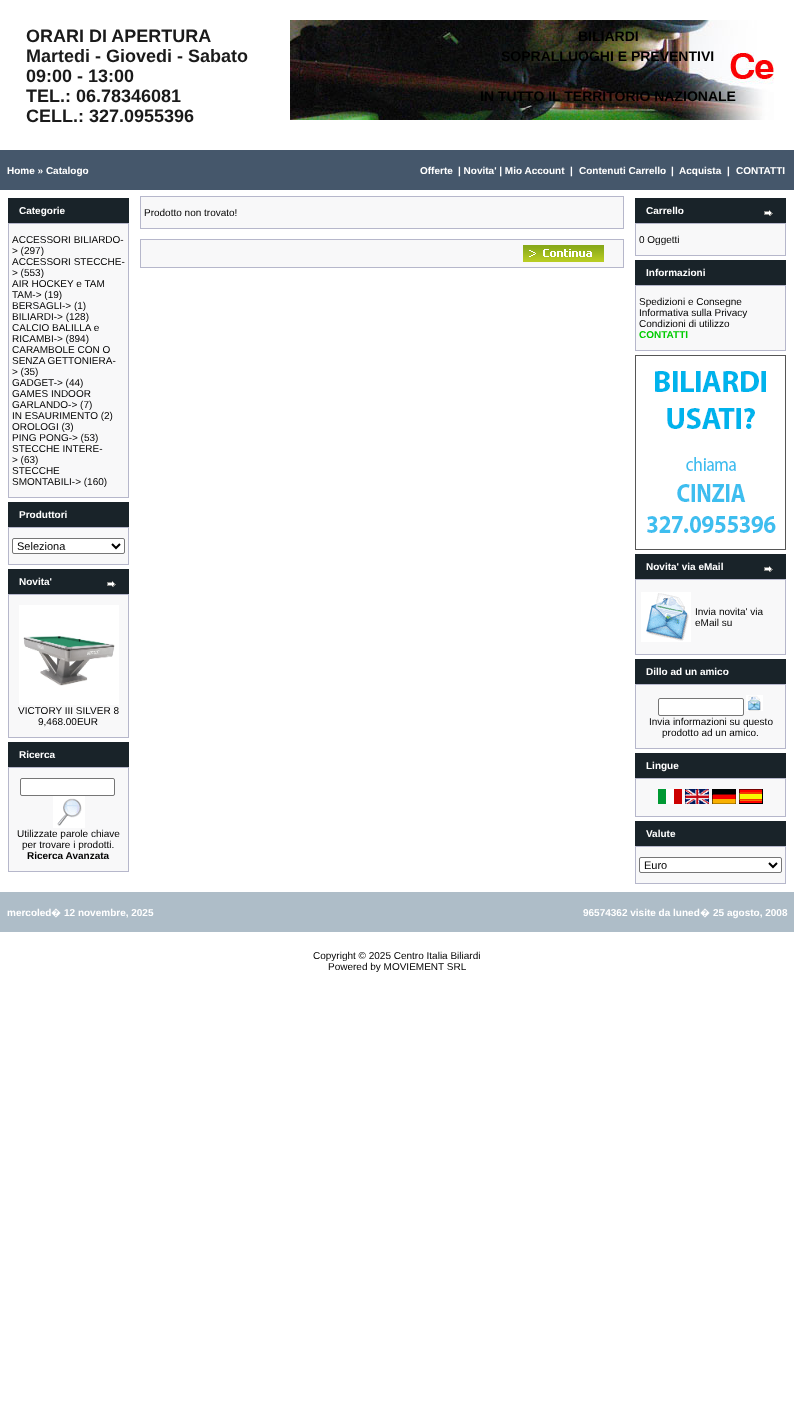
<svg xmlns="http://www.w3.org/2000/svg" width="794" height="1403">
	<rect width="100%" height="100%" fill="#FFFFFF" />
	<g font-family="Liberation Sans" font-size="18" font-weight="700" fill="#1A1A1A">
		<text x="26" y="42">ORARI DI APERTURA</text>
		<text x="26" y="62">Martedi - Giovedi - Sabato</text>
		<text x="26" y="82">09:00 - 13:00</text>
		<text x="26" y="102">TEL.: 06.78346081</text>
		<text x="26" y="122">CELL.: 327.0955396</text>
	</g>
	<image x="290" y="20" width="484" height="100" href="assets/img1.png" />
	<g font-family="Liberation Sans" font-size="14" font-weight="700" fill="#000000">
		<text x="578" y="41">BILIARDI</text>
		<text x="501" y="61">SOPRALLUOGHI E PREVENTIVI</text>
		<text x="480" y="101">IN TUTTO IL TERRITORIO NAZIONALE</text>
	</g>
	<rect x="0" y="150" width="794" height="40" fill="#45576B" />
	<g font-family="Liberation Sans" font-size="10" font-weight="700" fill="#FFFFFF">
		<text x="7" y="174">Home » Catalogo</text>
		<text x="420" y="174">Offerte</text>
		<text x="458" y="174">| Novita' | Mio Account</text>
		<text x="570" y="174">|</text>
		<text x="579" y="174">Contenuti Carrello</text>
		<text x="671" y="174">|</text>
		<text x="679" y="174">Acquista</text>
		<text x="727" y="174">|</text>
		<text x="736" y="174">CONTATTI</text>
	</g>
	<rect x="8" y="198" width="121" height="25" fill="#192329" />
	<text x="19" y="214" font-family="Liberation Sans" font-size="10" font-weight="700" fill="#FFFFFF">Categorie</text>
	<rect x="8" y="223" width="121" height="275" fill="#B6B7CB" />
	<rect x="9" y="224" width="119" height="273" fill="#F8F8F9" />
	<g font-family="Liberation Sans" font-size="10" fill="#000000">
		<text x="12" y="243">ACCESSORI BILIARDO-</text>
		<text x="12" y="254">&gt; (297)</text>
		<text x="12" y="265">ACCESSORI STECCHE-</text>
		<text x="12" y="276">&gt; (553)</text>
		<text x="12" y="287">AIR HOCKEY e TAM</text>
		<text x="12" y="298">TAM-&gt; (19)</text>
		<text x="12" y="309">BERSAGLI-&gt; (1)</text>
		<text x="12" y="320">BILIARDI-&gt; (128)</text>
		<text x="12" y="331">CALCIO BALILLA e</text>
		<text x="12" y="342">RICAMBI-&gt; (894)</text>
		<text x="12" y="353">CARAMBOLE CON O</text>
		<text x="12" y="364">SENZA GETTONIERA-</text>
		<text x="12" y="375">&gt; (35)</text>
		<text x="12" y="386">GADGET-&gt; (44)</text>
		<text x="12" y="397">GAMES INDOOR</text>
		<text x="12" y="408">GARLANDO-&gt; (7)</text>
		<text x="12" y="419">IN ESAURIMENTO (2)</text>
		<text x="12" y="430">OROLOGI (3)</text>
		<text x="12" y="441">PING PONG-&gt; (53)</text>
		<text x="12" y="452">STECCHE INTERE-</text>
		<text x="12" y="463">&gt; (63)</text>
		<text x="12" y="474">STECCHE</text>
		<text x="12" y="485">SMONTABILI-&gt; (160)</text>
	</g>
	<rect x="8" y="502" width="121" height="25" fill="#192329" />
	<text x="19" y="518" font-family="Liberation Sans" font-size="10" font-weight="700" fill="#FFFFFF">Produttori</text>
	<rect x="8" y="527" width="121" height="38" fill="#B6B7CB" />
	<rect x="9" y="528" width="119" height="36" fill="#F8F8F9" />
	<rect x="12.5" y="538.5" width="112" height="15" rx="1.5" fill="#FFFFFF" stroke="#767676" />
	<path d="M112 544L116 548L120 544" fill="none" stroke="#000000" stroke-width="2" />
	<text x="17" y="550" font-family="Liberation Sans" font-size="11" fill="#000000">Seleziona</text>
	<rect x="8" y="569" width="121" height="25" fill="#192329" />
	<text x="19" y="585" font-family="Liberation Sans" font-size="10" font-weight="700" fill="#FFFFFF">Novita'</text>
	<image x="107" y="581" width="9" height="6" href="assets/img2.png" />
	<rect x="8" y="594" width="121" height="144" fill="#B6B7CB" />
	<rect x="9" y="595" width="119" height="142" fill="#F8F8F9" />
	<image x="19" y="605" width="100" height="100" href="assets/img3.png" />
	<g font-family="Liberation Sans" font-size="10" fill="#000000">
		<text x="18" y="714">VICTORY III SILVER 8</text>
		<text x="38" y="725">9,468.00EUR</text>
	</g>
	<rect x="8" y="742" width="121" height="25" fill="#192329" />
	<text x="19" y="758" font-family="Liberation Sans" font-size="10" font-weight="700" fill="#FFFFFF">Ricerca</text>
	<rect x="8" y="767" width="121" height="105" fill="#B6B7CB" />
	<rect x="9" y="768" width="119" height="103" fill="#F8F8F9" />
	<rect x="20.5" y="778.5" width="94" height="17" rx="1.5" fill="#FFFFFF" stroke="#767676" />
	<image x="53" y="796" width="32" height="32" href="assets/img4.png" />
	<g font-family="Liberation Sans" font-size="10" fill="#000000">
		<text x="17" y="837">Utilizzate parole chiave</text>
		<text x="22" y="848">per trovare i prodotti.</text>
	</g>
	<text x="27" y="859" font-family="Liberation Sans" font-size="10" font-weight="700" fill="#000000">Ricerca Avanzata</text>
	<rect x="140" y="196" width="484" height="33" fill="#B6B7CB" />
	<rect x="141" y="197" width="482" height="31" fill="#F8F8F9" />
	<text x="144" y="216" font-family="Liberation Sans" font-size="10" fill="#000000">Prodotto non trovato!</text>
	<rect x="140" y="239" width="484" height="29" fill="#B6B7CB" />
	<rect x="141" y="240" width="482" height="27" fill="#F8F8F9" />
	<image x="523" y="245" width="81" height="17" href="assets/img5.png" />
	<rect x="635" y="198" width="151" height="25" fill="#192329" />
	<text x="646" y="214" font-family="Liberation Sans" font-size="10" font-weight="700" fill="#FFFFFF">Carrello</text>
	<image x="764" y="210" width="9" height="6" href="assets/img2.png" />
	<rect x="635" y="223" width="151" height="33" fill="#B6B7CB" />
	<rect x="636" y="224" width="149" height="31" fill="#F8F8F9" />
	<text x="639" y="243" font-family="Liberation Sans" font-size="10" fill="#000000">0 Oggetti</text>
	<rect x="635" y="260" width="151" height="25" fill="#192329" />
	<text x="646" y="276" font-family="Liberation Sans" font-size="10" font-weight="700" fill="#FFFFFF">Informazioni</text>
	<rect x="635" y="285" width="151" height="66" fill="#B6B7CB" />
	<rect x="636" y="286" width="149" height="64" fill="#F8F8F9" />
	<g font-family="Liberation Sans" font-size="10" fill="#000000">
		<text x="639" y="305">Spedizioni e Consegne</text>
		<text x="639" y="316">Informativa sulla Privacy</text>
		<text x="639" y="327">Condizioni di utilizzo</text>
	</g>
	<text x="639" y="338" font-family="Liberation Sans" font-size="10" font-weight="700" fill="#00CC00">CONTATTI</text>
	<image x="635" y="355" width="151" height="195" href="assets/img6.png" />
	<rect x="635" y="554" width="151" height="25" fill="#192329" />
	<text x="646" y="570" font-family="Liberation Sans" font-size="10" font-weight="700" fill="#FFFFFF">Novita' via eMail</text>
	<image x="764" y="566" width="9" height="6" href="assets/img2.png" />
	<rect x="635" y="579" width="151" height="76" fill="#B6B7CB" />
	<rect x="636" y="580" width="149" height="74" fill="#F8F8F9" />
	<image x="641" y="592" width="50" height="50" href="assets/img7.png" />
	<g font-family="Liberation Sans" font-size="10" fill="#000000">
		<text x="695" y="615">Invia novita' via</text>
		<text x="695" y="626">eMail su</text>
	</g>
	<rect x="635" y="659" width="151" height="25" fill="#192329" />
	<text x="646" y="675" font-family="Liberation Sans" font-size="10" font-weight="700" fill="#FFFFFF">Dillo ad un amico</text>
	<rect x="635" y="684" width="151" height="65" fill="#B6B7CB" />
	<rect x="636" y="685" width="149" height="63" fill="#F8F8F9" />
	<rect x="658.5" y="698.5" width="85" height="17" rx="1.5" fill="#FFFFFF" stroke="#767676" />
	<image x="746" y="695" width="17" height="16" href="assets/img8.png" />
	<g font-family="Liberation Sans" font-size="10" fill="#000000">
		<text x="649" y="725">Invia informazioni su questo</text>
		<text x="662" y="736">prodotto ad un amico.</text>
	</g>
	<rect x="635" y="753" width="151" height="25" fill="#192329" />
	<text x="646" y="769" font-family="Liberation Sans" font-size="10" font-weight="700" fill="#FFFFFF">Lingue</text>
	<rect x="635" y="778" width="151" height="39" fill="#B6B7CB" />
	<rect x="636" y="779" width="149" height="37" fill="#F8F8F9" />
	<image x="658" y="789" width="24" height="15" href="assets/img9.png" />
	<image x="685" y="789" width="24" height="15" href="assets/img10.png" />
	<image x="712" y="789" width="24" height="15" href="assets/img11.png" />
	<image x="739" y="789" width="24" height="15" href="assets/img12.png" />
	<rect x="635" y="821" width="151" height="25" fill="#192329" />
	<text x="646" y="837" font-family="Liberation Sans" font-size="10" font-weight="700" fill="#FFFFFF">Valute</text>
	<rect x="635" y="846" width="151" height="38" fill="#B6B7CB" />
	<rect x="636" y="847" width="149" height="36" fill="#F8F8F9" />
	<rect x="639.5" y="857.5" width="142" height="15" rx="1.5" fill="#FFFFFF" stroke="#767676" />
	<path d="M769 863L773 867L777 863" fill="none" stroke="#000000" stroke-width="2" />
	<text x="644" y="869" font-family="Liberation Sans" font-size="11" fill="#000000">Euro</text>
	<rect x="0" y="892" width="794" height="40" fill="#AEBDC8" />
	<text x="7" y="916" font-family="Liberation Sans" font-size="10" font-weight="700" fill="#FFFFFF">mercoled</text>
	<text x="51" y="916" font-family="Noto Sans" font-size="10" font-weight="700" fill="#FFFFFF">�</text>
	<g font-family="Liberation Sans" font-size="10" font-weight="700" fill="#FFFFFF">
		<text x="64" y="916">12 novembre, 2025</text>
		<text x="583" y="916">96574362 visite da luned</text>
	</g>
	<text x="700" y="916" font-family="Noto Sans" font-size="10" font-weight="700" fill="#FFFFFF">�</text>
	<text x="713" y="916" font-family="Liberation Sans" font-size="10" font-weight="700" fill="#FFFFFF">25 agosto, 2008</text>
	<g font-family="Liberation Sans" font-size="10" fill="#000000">
		<text x="313" y="959">Copyright © 2025 Centro Italia Biliardi</text>
		<text x="328" y="970">Powered by MOVIEMENT SRL</text>
	</g>
</svg>
